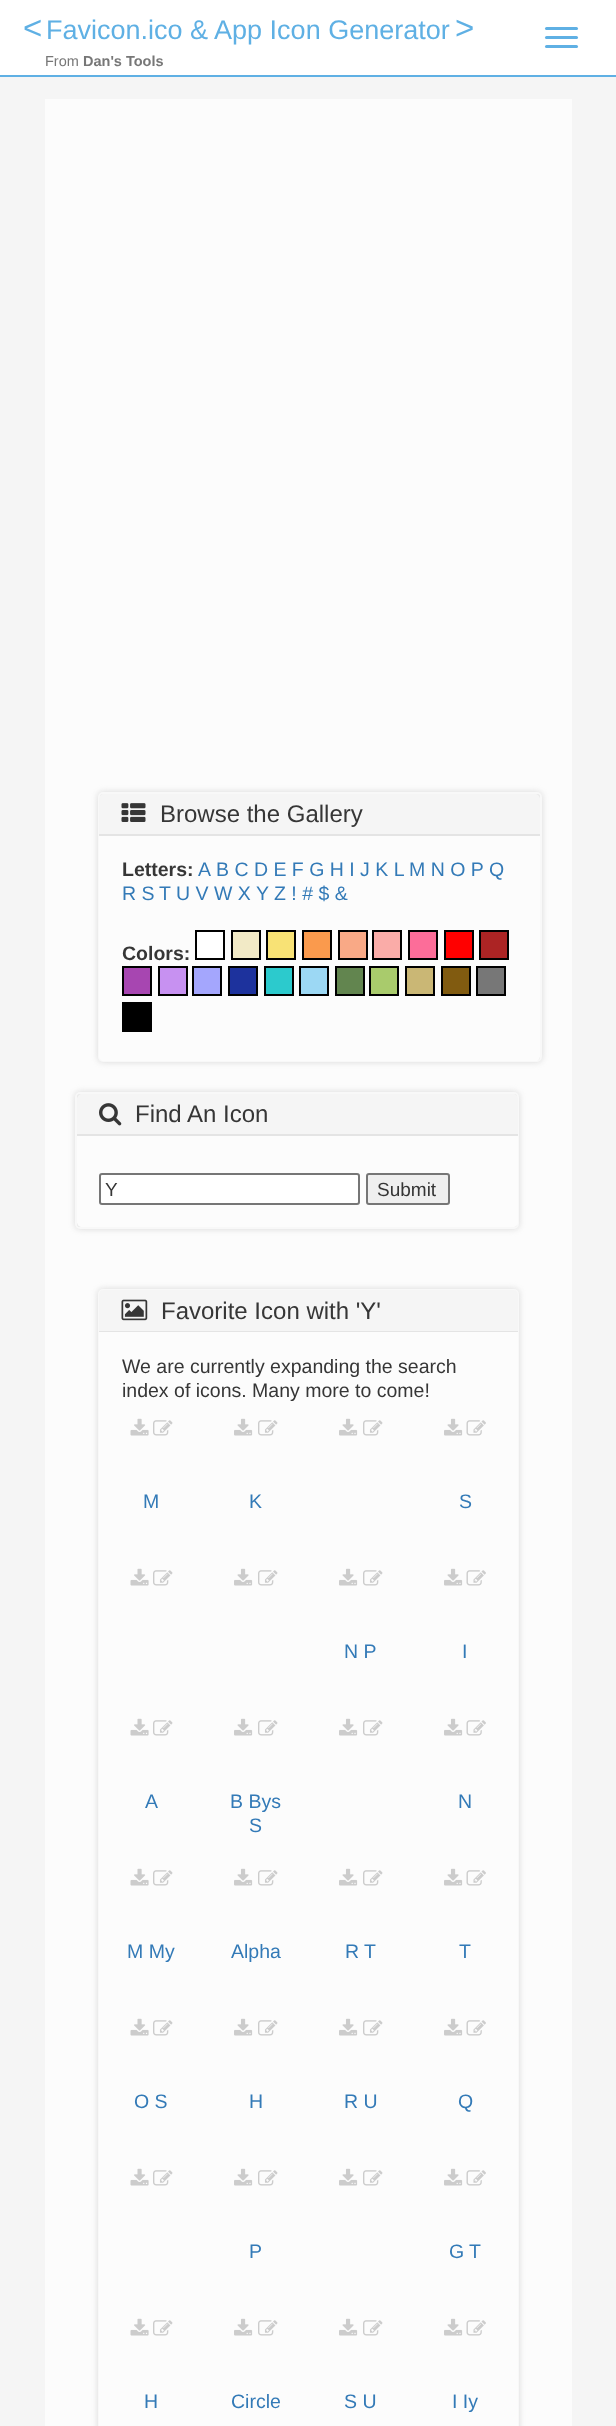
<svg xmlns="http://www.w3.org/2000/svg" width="616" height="2426">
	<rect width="100%" height="100%" fill="#F5F5F5" />
	<rect x="0" y="0" width="616" height="75" fill="#FFFFFF" />
	<rect x="0" y="75" width="616" height="2" fill="#5FB0E4" />
	<text x="23" y="39" font-family="Liberation Sans" font-size="33" fill="#5FB0E4">&lt;</text>
	<text x="46" y="39" font-family="Liberation Sans" font-size="27" fill="#5FB0E4">Favicon.ico &amp; App Icon Generator</text>
	<text x="455" y="39" font-family="Liberation Sans" font-size="33" fill="#5FB0E4">&gt;</text>
	<text x="45" y="66" font-family="Liberation Sans" font-size="14.5" fill="#777777">From</text>
	<text x="83" y="66" font-family="Liberation Sans" font-size="14.5" font-weight="700" fill="#777777">Dan's Tools</text>
	<rect x="545" y="27" width="33" height="3" rx="1.5" fill="#5FB0E4" />
	<rect x="545" y="36" width="33" height="3" rx="1.5" fill="#5FB0E4" />
	<rect x="545" y="45" width="33" height="3" rx="1.5" fill="#5FB0E4" />
	<rect x="45" y="99" width="527" height="2327" fill="#FCFCFC" />
	<rect x="98" y="792" width="444" height="270" rx="5" fill="#D8D8D8" filter="blur(3px)" />
	<rect x="99" y="793" width="442" height="268" rx="4" fill="none" stroke="#F8F8F8" stroke-width="2" />
	<path d="M104 794H535C538 794 540 796 540 799V836H99V799C99 796 101 794 104 794Z" fill="#F5F5F5" />
	<rect x="99" y="834" width="441" height="2" fill="#E4E4E4" />
	<image x="121" y="803" width="25" height="19" href="assets/img1.png" />
	<text x="160" y="822" font-family="Liberation Sans" font-size="24" fill="#363636">Browse the Gallery</text>
	<path d="M99 836H540V1056C540 1059 538 1061 535 1061H104C101 1061 99 1059 99 1056Z" fill="#FCFCFC" />
	<text x="122" y="876" font-family="Liberation Sans" font-size="19.5" font-weight="700" fill="#363636">Letters:</text>
	<g font-family="Liberation Sans" font-size="19.5" fill="#337AB7">
		<text x="198" y="876">A</text>
		<text x="216" y="876">B C D E F G H I J K L</text>
		<text x="409" y="876">M N O P</text>
		<text x="489" y="876">Q</text>
		<text x="122" y="900">R S</text>
		<text x="159" y="900">T</text>
		<text x="176" y="900">U V W X</text>
		<text x="256" y="900">Y</text>
		<text x="274" y="900">Z ! # $ &amp;</text>
	</g>
	<text x="122" y="960" font-family="Liberation Sans" font-size="19.5" font-weight="700" fill="#363636">Colors:</text>
	<rect x="196" y="931" width="28" height="28" fill="#FFFFFF" stroke="#000000" stroke-width="2" />
	<rect x="232" y="931" width="28" height="28" fill="#F2EAC6" stroke="#000000" stroke-width="2" />
	<rect x="267" y="931" width="28" height="28" fill="#F8E275" stroke="#000000" stroke-width="2" />
	<rect x="303" y="931" width="28" height="28" fill="#FA9A4D" stroke="#000000" stroke-width="2" />
	<rect x="339" y="931" width="28" height="28" fill="#F9A986" stroke="#000000" stroke-width="2" />
	<rect x="373" y="931" width="28" height="28" fill="#FAACA8" stroke="#000000" stroke-width="2" />
	<rect x="409" y="931" width="28" height="28" fill="#FC6D99" stroke="#000000" stroke-width="2" />
	<rect x="445" y="931" width="28" height="28" fill="#FF0000" stroke="#000000" stroke-width="2" />
	<rect x="480" y="931" width="28" height="28" fill="#AC2424" stroke="#000000" stroke-width="2" />
	<rect x="123" y="967" width="28" height="28" fill="#A746B1" stroke="#000000" stroke-width="2" />
	<rect x="159" y="967" width="28" height="28" fill="#C791F1" stroke="#000000" stroke-width="2" />
	<rect x="193" y="967" width="28" height="28" fill="#A4A6FD" stroke="#000000" stroke-width="2" />
	<rect x="229" y="967" width="28" height="28" fill="#1D329D" stroke="#000000" stroke-width="2" />
	<rect x="265" y="967" width="28" height="28" fill="#2CCACD" stroke="#000000" stroke-width="2" />
	<rect x="300" y="967" width="28" height="28" fill="#9CD8F4" stroke="#000000" stroke-width="2" />
	<rect x="336" y="967" width="28" height="28" fill="#62854F" stroke="#000000" stroke-width="2" />
	<rect x="370" y="967" width="28" height="28" fill="#A9CB6C" stroke="#000000" stroke-width="2" />
	<rect x="406" y="967" width="28" height="28" fill="#CAB775" stroke="#000000" stroke-width="2" />
	<rect x="442" y="967" width="28" height="28" fill="#815B10" stroke="#000000" stroke-width="2" />
	<rect x="477" y="967" width="28" height="28" fill="#777777" stroke="#000000" stroke-width="2" />
	<rect x="122" y="1002" width="30" height="30" fill="#000000" />
	<rect x="75" y="1092" width="444" height="137" rx="5" fill="#D8D8D8" filter="blur(3px)" />
	<rect x="76" y="1093" width="442" height="135" rx="4" fill="none" stroke="#F8F8F8" stroke-width="2" />
	<path d="M82 1094H513C516 1094 518 1096 518 1099V1136H77V1099C77 1096 79 1094 82 1094Z" fill="#F5F5F5" />
	<rect x="77" y="1134" width="441" height="2" fill="#E4E4E4" />
	<image x="99" y="1103" width="23" height="23" href="assets/img2.png" />
	<text x="135" y="1122" font-family="Liberation Sans" font-size="24" fill="#363636">Find An Icon</text>
	<path d="M77 1136H518V1222C518 1225 516 1227 513 1227H82C79 1227 77 1225 77 1222Z" fill="#FCFCFC" />
	<rect x="100" y="1174" width="259" height="30" rx="2" fill="#FFFFFF" stroke="#767676" stroke-width="2" />
	<text x="105" y="1196" font-family="Liberation Sans" font-size="19" fill="#363636">Y</text>
	<rect x="367" y="1174" width="82" height="30" rx="2" fill="#EFEFEF" stroke="#767676" stroke-width="2" />
	<text x="377" y="1196" font-family="Liberation Sans" font-size="19" fill="#363636">Submit</text>
	<rect x="98" y="1289" width="421" height="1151" rx="5" fill="#D8D8D8" filter="blur(3px)" />
	<rect x="99" y="1290" width="419" height="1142" rx="4" fill="none" stroke="#F8F8F8" stroke-width="2" />
	<path d="M104 1290H513C516 1290 518 1292 518 1295V1332H99V1295C99 1292 101 1290 104 1290Z" fill="#F5F5F5" />
	<rect x="99" y="1331" width="419" height="1" fill="#E4E4E4" />
	<image x="121" y="1299" width="27" height="22" href="assets/img3.png" />
	<text x="161" y="1319" font-family="Liberation Sans" font-size="24" fill="#363636">Favorite Icon with 'Y'</text>
	<rect x="99" y="1332" width="419" height="1094" fill="#FCFCFC" />
	<g font-family="Liberation Sans" font-size="19.5" fill="#363636">
		<text x="122" y="1373">We are currently expanding the search</text>
		<text x="122" y="1397">index of icons. Many more to come!</text>
	</g>
	<image x="339" y="1418" width="19" height="18" href="assets/img4.png" />
	<image x="363" y="1420" width="20" height="16" href="assets/img5.png" />
	<image x="130" y="1418" width="19" height="18" href="assets/img6.png" />
	<image x="153" y="1420" width="20" height="16" href="assets/img5.png" />
	<text x="143" y="1508" font-family="Liberation Sans" font-size="19.5" fill="#337AB7">M</text>
	<image x="234" y="1418" width="19" height="18" href="assets/img4.png" />
	<image x="258" y="1420" width="20" height="16" href="assets/img5.png" />
	<text x="249" y="1508" font-family="Liberation Sans" font-size="19.5" fill="#337AB7">K</text>
	<image x="444" y="1418" width="19" height="18" href="assets/img4.png" />
	<image x="466" y="1420" width="20" height="16" href="assets/img7.png" />
	<text x="459" y="1508" font-family="Liberation Sans" font-size="19.5" fill="#337AB7">S</text>
	<image x="130" y="1568" width="19" height="18" href="assets/img6.png" />
	<image x="153" y="1570" width="20" height="16" href="assets/img5.png" />
	<image x="234" y="1568" width="19" height="18" href="assets/img4.png" />
	<image x="258" y="1570" width="20" height="16" href="assets/img5.png" />
	<image x="339" y="1568" width="19" height="18" href="assets/img4.png" />
	<image x="363" y="1570" width="20" height="16" href="assets/img5.png" />
	<text x="344" y="1658" font-family="Liberation Sans" font-size="19.5" fill="#337AB7">N P</text>
	<image x="444" y="1568" width="19" height="18" href="assets/img4.png" />
	<image x="466" y="1570" width="20" height="16" href="assets/img7.png" />
	<text x="462" y="1658" font-family="Liberation Sans" font-size="19.5" fill="#337AB7">I</text>
	<image x="339" y="1718" width="19" height="18" href="assets/img4.png" />
	<image x="363" y="1720" width="20" height="16" href="assets/img5.png" />
	<image x="130" y="1718" width="19" height="18" href="assets/img6.png" />
	<image x="153" y="1720" width="20" height="16" href="assets/img5.png" />
	<text x="145" y="1808" font-family="Liberation Sans" font-size="19.5" fill="#337AB7">A</text>
	<image x="234" y="1718" width="19" height="18" href="assets/img4.png" />
	<image x="258" y="1720" width="20" height="16" href="assets/img5.png" />
	<g font-family="Liberation Sans" font-size="19.5" fill="#337AB7">
		<text x="230" y="1808">B Bys</text>
		<text x="249" y="1832">S</text>
	</g>
	<image x="444" y="1718" width="19" height="18" href="assets/img4.png" />
	<image x="466" y="1720" width="20" height="16" href="assets/img7.png" />
	<text x="458" y="1808" font-family="Liberation Sans" font-size="19.5" fill="#337AB7">N</text>
	<image x="130" y="1868" width="19" height="18" href="assets/img6.png" />
	<image x="153" y="1870" width="20" height="16" href="assets/img5.png" />
	<text x="127" y="1958" font-family="Liberation Sans" font-size="19.5" fill="#337AB7">M My</text>
	<image x="234" y="1868" width="19" height="18" href="assets/img4.png" />
	<image x="258" y="1870" width="20" height="16" href="assets/img5.png" />
	<text x="231" y="1958" font-family="Liberation Sans" font-size="19.5" fill="#337AB7">Alpha</text>
	<image x="339" y="1868" width="19" height="18" href="assets/img4.png" />
	<image x="363" y="1870" width="20" height="16" href="assets/img5.png" />
	<g font-family="Liberation Sans" font-size="19.5" fill="#337AB7">
		<text x="345" y="1958">R</text>
		<text x="364" y="1958">T</text>
	</g>
	<image x="444" y="1868" width="19" height="18" href="assets/img4.png" />
	<image x="466" y="1870" width="20" height="16" href="assets/img7.png" />
	<text x="459" y="1958" font-family="Liberation Sans" font-size="19.5" fill="#337AB7">T</text>
	<image x="130" y="2018" width="19" height="18" href="assets/img6.png" />
	<image x="153" y="2020" width="20" height="16" href="assets/img5.png" />
	<text x="134" y="2108" font-family="Liberation Sans" font-size="19.5" fill="#337AB7">O S</text>
	<image x="234" y="2018" width="19" height="18" href="assets/img4.png" />
	<image x="258" y="2020" width="20" height="16" href="assets/img5.png" />
	<text x="249" y="2108" font-family="Liberation Sans" font-size="19.5" fill="#337AB7">H</text>
	<image x="339" y="2018" width="19" height="18" href="assets/img4.png" />
	<image x="363" y="2020" width="20" height="16" href="assets/img5.png" />
	<text x="344" y="2108" font-family="Liberation Sans" font-size="19.5" fill="#337AB7">R U</text>
	<image x="444" y="2018" width="19" height="18" href="assets/img4.png" />
	<image x="466" y="2020" width="20" height="16" href="assets/img7.png" />
	<text x="458" y="2108" font-family="Liberation Sans" font-size="19.5" fill="#337AB7">Q</text>
	<image x="130" y="2168" width="19" height="18" href="assets/img6.png" />
	<image x="153" y="2170" width="20" height="16" href="assets/img5.png" />
	<image x="339" y="2168" width="19" height="18" href="assets/img4.png" />
	<image x="363" y="2170" width="20" height="16" href="assets/img5.png" />
	<image x="234" y="2168" width="19" height="18" href="assets/img4.png" />
	<image x="258" y="2170" width="20" height="16" href="assets/img5.png" />
	<text x="249" y="2258" font-family="Liberation Sans" font-size="19.5" fill="#337AB7">P</text>
	<image x="444" y="2168" width="19" height="18" href="assets/img4.png" />
	<image x="466" y="2170" width="20" height="16" href="assets/img7.png" />
	<g font-family="Liberation Sans" font-size="19.5" fill="#337AB7">
		<text x="449" y="2258">G</text>
		<text x="469" y="2258">T</text>
	</g>
	<image x="130" y="2318" width="19" height="18" href="assets/img6.png" />
	<image x="153" y="2320" width="20" height="16" href="assets/img5.png" />
	<text x="144" y="2408" font-family="Liberation Sans" font-size="19.5" fill="#337AB7">H</text>
	<image x="234" y="2318" width="19" height="18" href="assets/img4.png" />
	<image x="258" y="2320" width="20" height="16" href="assets/img5.png" />
	<text x="231" y="2408" font-family="Liberation Sans" font-size="19.5" fill="#337AB7">Circle</text>
	<image x="339" y="2318" width="19" height="18" href="assets/img4.png" />
	<image x="363" y="2320" width="20" height="16" href="assets/img5.png" />
	<text x="344" y="2408" font-family="Liberation Sans" font-size="19.5" fill="#337AB7">S U</text>
	<image x="444" y="2318" width="19" height="18" href="assets/img4.png" />
	<image x="466" y="2320" width="20" height="16" href="assets/img7.png" />
	<text x="452" y="2408" font-family="Liberation Sans" font-size="19.5" fill="#337AB7">I Iy</text>
</svg>
